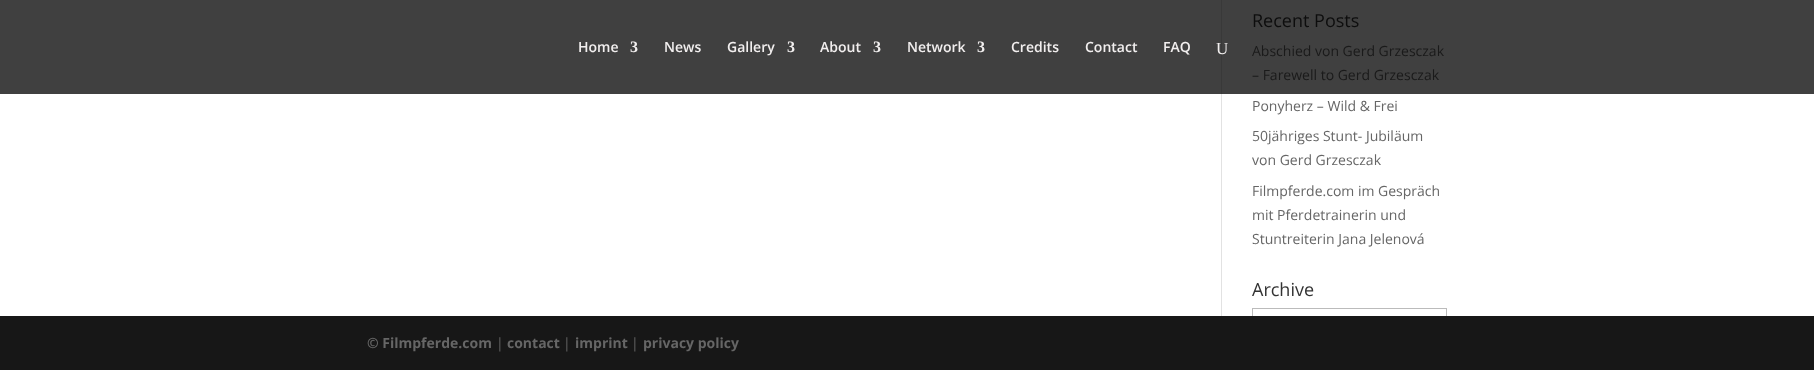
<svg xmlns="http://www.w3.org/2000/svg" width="1814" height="370">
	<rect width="100%" height="100%" fill="#FFFFFF" />
	<rect x="0" y="0" width="1814" height="94" fill="#404040" />
	<rect x="1221" y="94" width="1" height="222" fill="#E2E2E2" />
	<rect x="1221" y="0" width="1" height="94" fill="#393939" />
	<text x="1252" y="27" font-family="Open Sans" font-size="18" fill="#0D0D0D">Recent Posts</text>
	<g font-family="Open Sans" font-size="14" fill="#1A1A1A">
		<text x="1252" y="56">Abschied von Gerd Grzesczak</text>
		<text x="1252" y="80">– Farewell to Gerd Grzesczak</text>
	</g>
	<g font-family="Open Sans" font-size="14" fill="#666666">
		<text x="1252" y="111">Ponyherz – Wild &amp; Frei</text>
		<text x="1252" y="141">50jähriges Stunt- Jubiläum</text>
		<text x="1252" y="165">von Gerd Grzesczak</text>
		<text x="1252" y="196">Filmpferde.com im Gespräch</text>
		<text x="1252" y="220">mit Pferdetrainerin und</text>
		<text x="1252" y="244">Stuntreiterin Jana Jelenová</text>
	</g>
	<text x="1252" y="296" font-family="Open Sans" font-size="18" fill="#333333">Archive</text>
	<rect x="1252.5" y="308.5" width="194" height="27" fill="none" stroke="#BBBBBB" />
	<rect x="0" y="316" width="1814" height="54" fill="#171717" />
	<text x="367" y="348" font-family="Open Sans" font-size="14" font-weight="700" fill="#666666">© Filmpferde.com</text>
	<text x="496" y="348" font-family="Open Sans" font-size="14" fill="#666666">|</text>
	<text x="507" y="348" font-family="Open Sans" font-size="14" font-weight="700" fill="#666666">contact</text>
	<text x="563" y="348" font-family="Open Sans" font-size="14" fill="#666666">|</text>
	<text x="575" y="348" font-family="Open Sans" font-size="14" font-weight="700" fill="#666666">imprint</text>
	<text x="631" y="348" font-family="Open Sans" font-size="14" fill="#666666">|</text>
	<text x="643" y="348" font-family="Open Sans" font-size="14" font-weight="700" fill="#666666">privacy policy</text>
	<text x="578" y="52" font-family="Open Sans" font-size="14" font-weight="600" fill="#F2EFEF">Home</text>
	<text x="630" y="52" font-family="Liberation Serif" font-size="16" font-weight="700" fill="#F2EFEF">3</text>
	<g font-family="Open Sans" font-size="14" font-weight="600" fill="#F2EFEF">
		<text x="664" y="52">News</text>
		<text x="727" y="52">Gallery</text>
	</g>
	<text x="787" y="52" font-family="Liberation Serif" font-size="16" font-weight="700" fill="#F2EFEF">3</text>
	<text x="820" y="52" font-family="Open Sans" font-size="14" font-weight="600" fill="#F2EFEF">About</text>
	<text x="873" y="52" font-family="Liberation Serif" font-size="16" font-weight="700" fill="#F2EFEF">3</text>
	<text x="907" y="52" font-family="Open Sans" font-size="14" font-weight="600" fill="#F2EFEF">Network</text>
	<text x="977" y="52" font-family="Liberation Serif" font-size="16" font-weight="700" fill="#F2EFEF">3</text>
	<g font-family="Open Sans" font-size="14" font-weight="600" fill="#F2EFEF">
		<text x="1011" y="52">Credits</text>
		<text x="1085" y="52">Contact</text>
		<text x="1163" y="52">FAQ</text>
	</g>
	<text x="1216" y="54" font-family="Liberation Serif" font-size="17" fill="#F2EFEF">U</text>
</svg>
